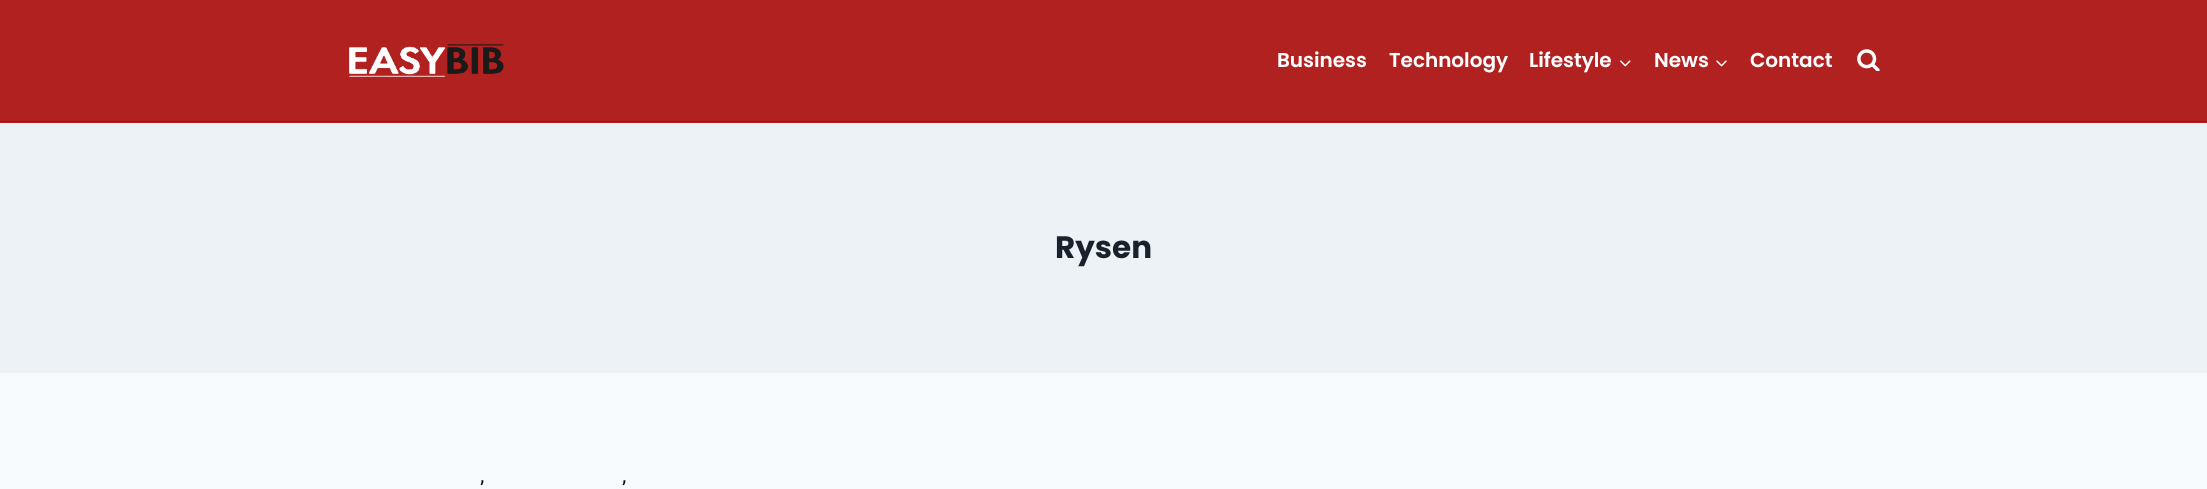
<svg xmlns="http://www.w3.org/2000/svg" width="2207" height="489">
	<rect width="100%" height="100%" fill="#F7FAFC" />
	<rect x="0" y="0" width="2207" height="123" fill="#B02120" />
	<rect x="0" y="121" width="2207" height="1" fill="#911A1A" />
	<image x="349" y="44" width="155" height="33" href="assets/img1.png" />
	<g font-family="Poppins" font-size="20" font-weight="600" fill="#FFFFFF">
		<text x="1277" y="67">Business</text>
		<text x="1389" y="67">Technology</text>
		<text x="1529" y="67">Lifestyle</text>
	</g>
	<image x="1620" y="60" width="11" height="7" href="assets/img2.png" />
	<text x="1654" y="67" font-family="Poppins" font-size="20" font-weight="600" fill="#FFFFFF">News</text>
	<image x="1716" y="60" width="11" height="7" href="assets/img3.png" />
	<text x="1750" y="67" font-family="Poppins" font-size="20" font-weight="600" fill="#FFFFFF">Contact</text>
	<image x="1857" y="49" width="23" height="22" href="assets/img4.png" />
	<rect x="0" y="123" width="2207" height="250" fill="#EDF2F7" />
	<text x="1055" y="258" font-family="Poppins" font-size="31" font-weight="700" fill="#1A202C">Rysen</text>
	<g font-family="Roboto" font-size="21" fill="#000000">
		<text x="480" y="496">’</text>
		<text x="622" y="496">’</text>
	</g>
</svg>
